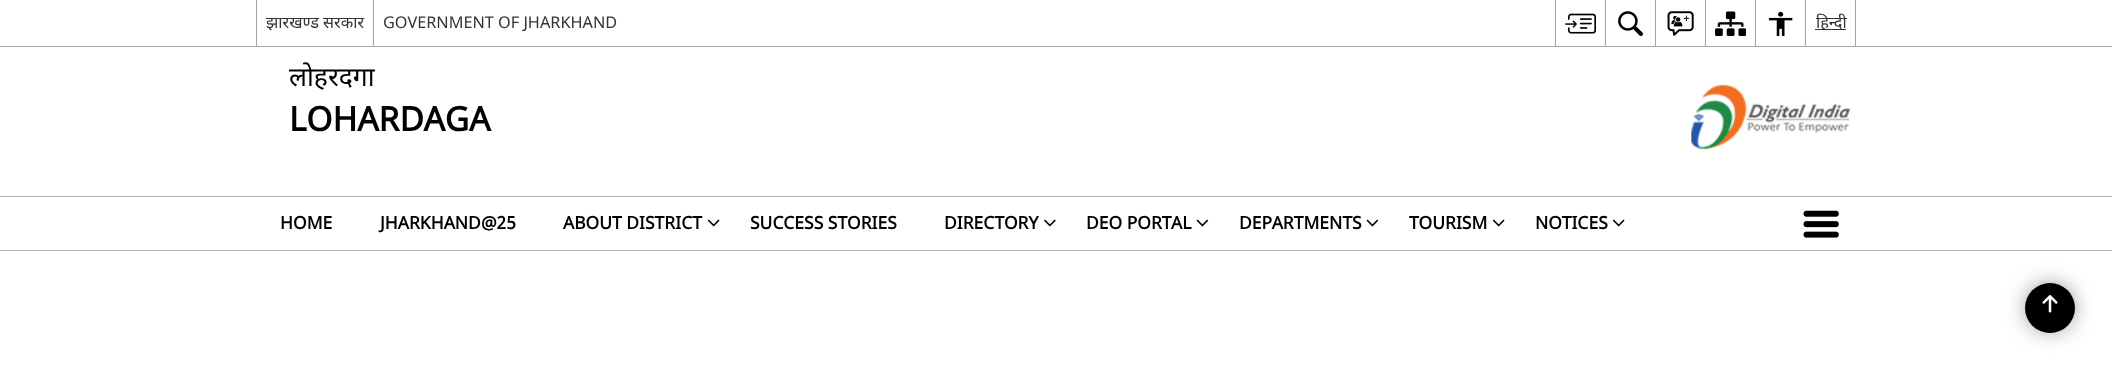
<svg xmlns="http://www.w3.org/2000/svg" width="2112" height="369">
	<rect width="100%" height="100%" fill="#FFFFFF" />
	<rect x="0" y="46" width="2112" height="1" fill="#ABABAB" />
	<rect x="256" y="0" width="1" height="46" fill="#A3A3A3" />
	<text x="266" y="28" font-family="Noto Sans" font-size="16.25" fill="#333333">झारखण्ड सरकार</text>
	<rect x="373" y="0" width="1" height="46" fill="#A3A3A3" />
	<text x="383" y="28" font-family="'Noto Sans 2'" font-size="16.25" fill="#333333">GOVERNMENT OF JHARKHAND</text>
	<rect x="1555" y="0" width="1" height="46" fill="#A3A3A3" />
	<image x="1565" y="13" width="31" height="21" href="assets/img1.png" />
	<rect x="1605" y="0" width="1" height="46" fill="#A3A3A3" />
	<image x="1618" y="11" width="25" height="25" href="assets/img2.png" />
	<rect x="1655" y="0" width="1" height="46" fill="#A3A3A3" />
	<image x="1667" y="11" width="27" height="25" href="assets/img3.png" />
	<rect x="1705" y="0" width="1" height="46" fill="#A3A3A3" />
	<image x="1715" y="11" width="31" height="25" href="assets/img4.png" />
	<rect x="1755" y="0" width="1" height="46" fill="#A3A3A3" />
	<image x="1768" y="11" width="25" height="25" href="assets/img5.png" />
	<rect x="1855" y="0" width="1" height="46" fill="#A3A3A3" />
	<rect x="1805" y="0" width="1" height="46" fill="#A3A3A3" />
	<rect x="1815" y="29" width="31" height="1" fill="#333333" />
	<text x="1816" y="28" font-family="Noto Sans" font-size="16.25" fill="#333333">हिन्दी</text>
	<text x="289" y="86" font-family="Noto Sans" font-size="26.5" fill="#000000">लोहरदगा</text>
	<text x="289" y="131" font-family="Noto Sans" font-size="33.5" font-weight="700" fill="#000000">LOHARDAGA</text>
	<image x="1691" y="84" width="160" height="65" href="assets/img6.png" />
	<rect x="0" y="196" width="2112" height="1" fill="#B3B3B3" />
	<rect x="0" y="250" width="2112" height="1" fill="#B3B3B3" />
	<g font-family="Noto Sans" font-size="17.5" font-weight="700" fill="#000000">
		<text x="280" y="229">HOME</text>
		<text x="380" y="229">JHARKHAND@25</text>
		<text x="563" y="229">ABOUT DISTRICT</text>
	</g>
	<image x="707" y="219" width="13" height="8" href="assets/img7.png" />
	<g font-family="Noto Sans" font-size="17.5" font-weight="700" fill="#000000">
		<text x="750" y="229">SUCCESS STORIES</text>
		<text x="944" y="229">DIRECTORY</text>
	</g>
	<image x="1044" y="219" width="12" height="8" href="assets/img8.png" />
	<text x="1086" y="229" font-family="Noto Sans" font-size="17.5" font-weight="700" fill="#000000">DEO PORTAL</text>
	<image x="1196" y="219" width="13" height="8" href="assets/img9.png" />
	<text x="1239" y="229" font-family="Noto Sans" font-size="17.5" font-weight="700" fill="#000000">DEPARTMENTS</text>
	<image x="1366" y="219" width="13" height="8" href="assets/img9.png" />
	<text x="1409" y="229" font-family="Noto Sans" font-size="17.5" font-weight="700" fill="#000000">TOURISM</text>
	<image x="1492" y="219" width="13" height="8" href="assets/img7.png" />
	<text x="1535" y="229" font-family="Noto Sans" font-size="17.5" font-weight="700" fill="#000000">NOTICES</text>
	<image x="1612" y="219" width="13" height="8" href="assets/img7.png" />
	<image x="1803" y="210" width="36" height="28" href="assets/img10.png" />
	<rect x="2031" y="289" width="38" height="37" rx="18.5" fill="#3C3C3C" filter="blur(12px)" />
	<circle cx="2050" cy="308" r="25" fill="#000000" />
	<image x="2042" y="295" width="16" height="18" href="assets/img11.png" />
</svg>
